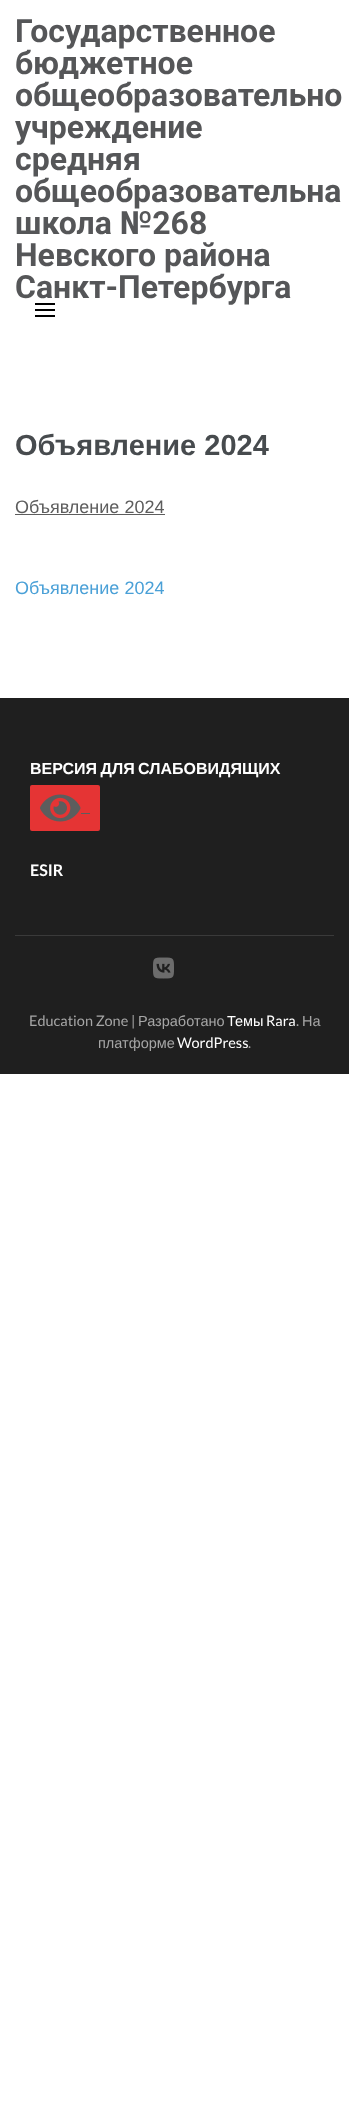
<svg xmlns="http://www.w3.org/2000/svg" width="349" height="2104">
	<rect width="100%" height="100%" fill="#FFFFFF" />
	<g font-family="Roboto" font-size="32" font-weight="700" fill="#555658">
		<text x="15" y="42">Государственное</text>
		<text x="15" y="74">бюджетное</text>
		<text x="15" y="106">общеобразовательно</text>
		<text x="15" y="138">учреждение</text>
		<text x="15" y="170">средняя</text>
		<text x="15" y="202">общеобразовательна</text>
		<text x="15" y="234">школа №268</text>
		<text x="15" y="266">Невского района</text>
		<text x="15" y="298">Санкт-Петербурга</text>
	</g>
	<rect x="35" y="303" width="20" height="2" fill="#000000" />
	<rect x="35" y="309" width="20" height="2" fill="#000000" />
	<rect x="35" y="315" width="20" height="2" fill="#000000" />
	<text x="15" y="455" font-family="Liberation Sans" font-size="29" font-weight="700" fill="#474B4E">Объявление 2024</text>
	<text x="15" y="513" font-family="Liberation Sans" font-size="18" fill="#5D5D5D">Объявление 2024</text>
	<rect x="15" y="514" width="150" height="1" fill="#5D5D5D" />
	<text x="15" y="594" font-family="Liberation Sans" font-size="18" fill="#4AA0D7">Объявление 2024</text>
	<rect x="0" y="698" width="349" height="376" fill="#1F1F1F" />
	<rect x="15" y="935" width="319" height="1" fill="#3A3A3A" />
	<text x="30" y="774" word-spacing="-1" font-family="Liberation Sans" font-size="16" font-weight="700" fill="#FFFFFF">ВЕРСИЯ ДЛЯ СЛАБОВИДЯЩИХ</text>
	<rect x="30" y="785" width="70" height="46" rx="2" fill="#E53434" />
	<image x="40" y="794" width="41" height="28" href="assets/img1.png" />
	<rect x="81" y="813" width="9" height="1" fill="#5D5D5D" />
	<text x="30" y="876" font-family="Lato" font-size="16" font-weight="700" fill="#FFFFFF">ESIR</text>
	<image x="153" y="957" width="21" height="22" href="assets/img2.png" />
	<text x="29" y="1026" font-family="Lato" font-size="14.5" fill="#A6A6A6">Education Zone |</text>
	<text x="138" y="1026" font-family="Liberation Sans" font-size="14.5" fill="#A6A6A6">Разработано</text>
	<text x="227" y="1026" font-family="Liberation Sans" font-size="14.5" fill="#FFFFFF">Темы</text>
	<text x="266" y="1026" font-family="Lato" font-size="14.5" fill="#FFFFFF">Rara</text>
	<text x="296" y="1026" font-family="Lato" font-size="14.5" fill="#A6A6A6">.</text>
	<g font-family="Liberation Sans" font-size="14.5" fill="#A6A6A6">
		<text x="302" y="1026">На</text>
		<text x="98" y="1048">платформе</text>
	</g>
	<text x="177" y="1048" font-family="Lato" font-size="14.5" fill="#FFFFFF">WordPress</text>
	<text x="248" y="1048" font-family="Lato" font-size="14.5" fill="#A6A6A6">.</text>
</svg>
